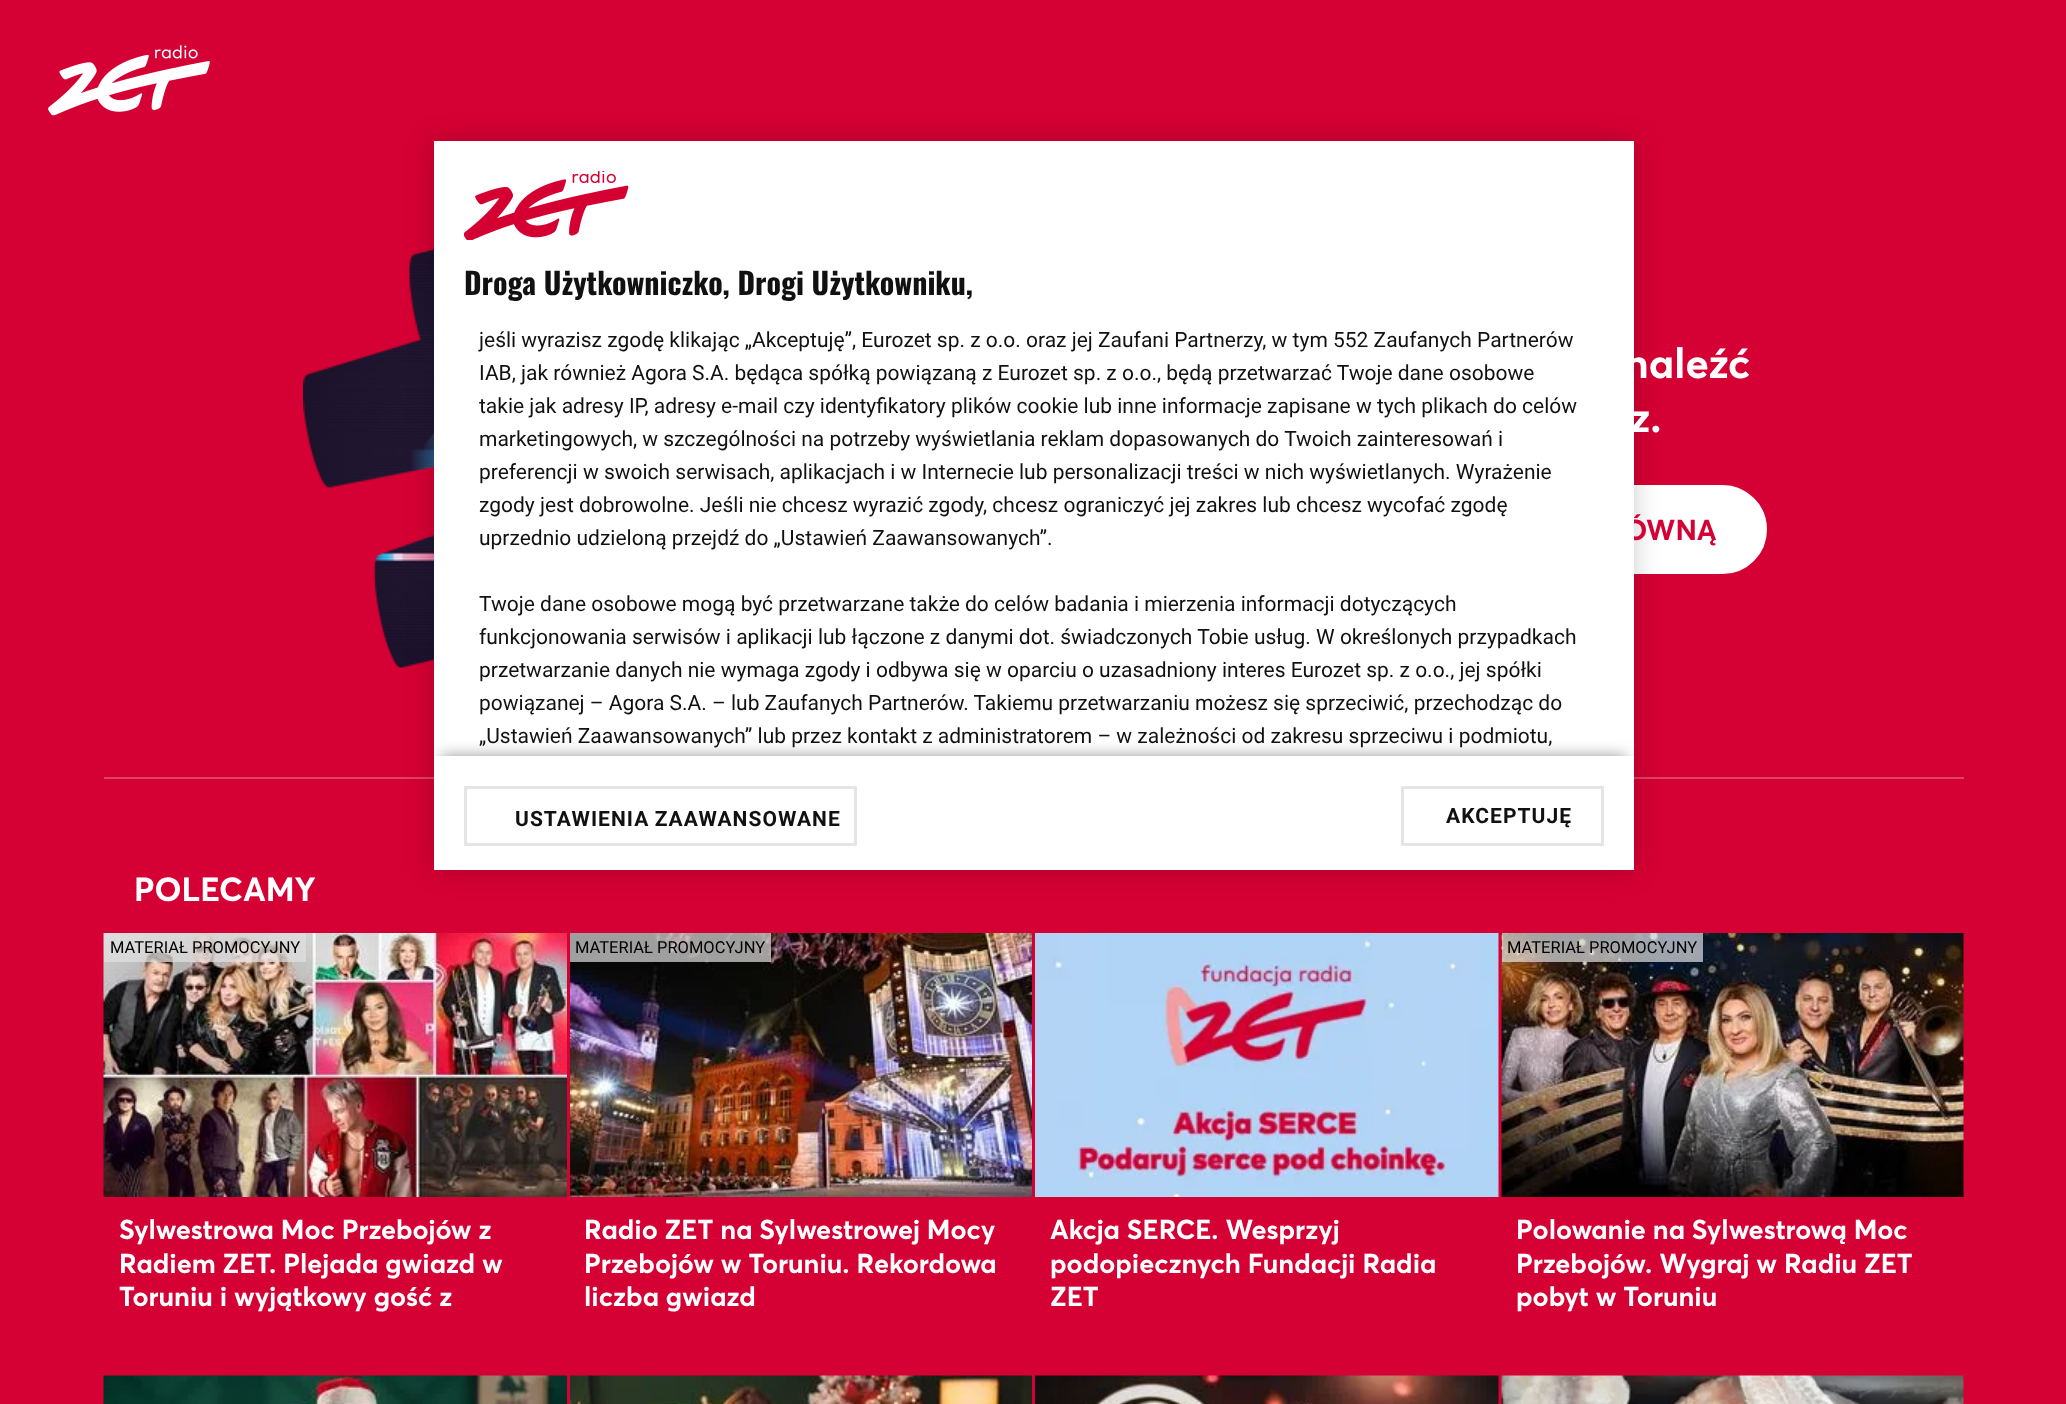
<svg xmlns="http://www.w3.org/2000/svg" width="2066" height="1404">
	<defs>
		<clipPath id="clip1"><rect x="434" y="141" width="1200" height="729" /></clipPath>
		<clipPath id="clip2"><path d="M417 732H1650V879H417ZM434 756H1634V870H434Z" clip-rule="evenodd" /></clipPath>
	</defs>
	<rect width="100%" height="100%" fill="#D50033" />
	<image x="48" y="45" width="162" height="71" href="assets/img1.png" />
	<image x="303" y="248" width="131" height="420" href="assets/img3.png" />
	<rect x="1239" y="484" width="529" height="91" rx="45.5" fill="#FFFFFF" stroke="#D50033" stroke-width="2" />
	<rect x="104" y="777" width="1860" height="2" fill="#D94467" />
	<rect x="434" y="141" width="1200" height="729" fill="#000000" fill-opacity="0.2" filter="blur(13.5px)" />
	<text x="1624" y="540" font-family="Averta" font-size="28.5" font-weight="700" fill="#D50033">ÓWNĄ</text>
	<rect x="434" y="141" width="1200" height="729" fill="#FFFFFF" />
	<image x="464" y="171" width="165" height="69" href="assets/img2.png" />
	<text x="464" y="295" font-family="Oswald" font-size="30" font-weight="700" fill="#111111">Droga Użytkowniczko, Drogi Użytkowniku,</text>
	<g font-family="Roboto" font-size="21" fill="#111111">
		<text x="479" y="347">jeśli wyrazisz zgodę klikając „Akceptuję”, Eurozet sp. z o.o. oraz jej Zaufani Partnerzy, w tym 552 Zaufanych Partnerów</text>
		<text x="479" y="380">IAB, jak również Agora S.A. będąca spółką powiązaną z Eurozet sp. z o.o., będą przetwarzać Twoje dane osobowe</text>
		<text x="479" y="413">takie jak adresy IP, adresy e-mail czy identyfikatory plików cookie lub inne informacje zapisane w tych plikach do celów</text>
		<text x="479" y="446">marketingowych, w szczególności na potrzeby wyświetlania reklam dopasowanych do Twoich zainteresowań i</text>
		<text x="479" y="479">preferencji w swoich serwisach, aplikacjach i w Internecie lub personalizacji treści w nich wyświetlanych. Wyrażenie</text>
		<text x="479" y="512">zgody jest dobrowolne. Jeśli nie chcesz wyrazić zgody, chcesz ograniczyć jej zakres lub chcesz wycofać zgodę</text>
		<text x="479" y="545">uprzednio udzieloną przejdź do „Ustawień Zaawansowanych”.</text>
		<text x="479" y="611">Twoje dane osobowe mogą być przetwarzane także do celów badania i mierzenia informacji dotyczących</text>
		<text x="479" y="644">funkcjonowania serwisów i aplikacji lub łączone z danymi dot. świadczonych Tobie usług. W określonych przypadkach</text>
		<text x="479" y="677">przetwarzanie danych nie wymaga zgody i odbywa się w oparciu o uzasadniony interes Eurozet sp. z o.o., jej spółki</text>
		<text x="479" y="710">powiązanej – Agora S.A. – lub Zaufanych Partnerów. Takiemu przetwarzaniu możesz się sprzeciwić, przechodząc do</text>
	</g>
	<g clip-path="url(#clip1)">
		<g clip-path="url(#clip2)">
			<rect x="441" y="756" width="1185" height="99" fill="#737373" fill-opacity="0.75" filter="blur(7.5px)" />
		</g>
	</g>
	<text x="479" y="743" font-family="Roboto" font-size="21" fill="#111111">„Ustawień Zaawansowanych” lub przez kontakt z administratorem – w zależności od zakresu sprzeciwu i podmiotu,</text>
	<rect x="465.5" y="787.5" width="390" height="57" fill="none" stroke="#E5E5E5" stroke-width="3" />
	<text x="515" y="826" word-spacing="-1" font-family="Roboto" font-size="21" font-weight="700" letter-spacing="1.05" fill="#111111">USTAWIENIA ZAAWANSOWANE</text>
	<rect x="1402.5" y="787.5" width="200" height="57" fill="none" stroke="#E5E5E5" stroke-width="3" />
	<text x="1446" y="823" font-family="Roboto" font-size="21" font-weight="700" letter-spacing="1.05" fill="#111111">AKCEPTUJĘ</text>
	<g font-family="Averta" font-size="42" font-weight="700" fill="#FFFFFF">
		<text x="1624" y="378">naleźć</text>
		<text x="1630" y="432">z.</text>
	</g>
	<text x="134" y="901" font-family="Averta" font-size="33" font-weight="700" fill="#FFFFFF">POLECAMY</text>
	<image x="103" y="933" width="464" height="264" href="assets/img4.png" />
	<rect x="104" y="933" width="202" height="29" fill="#E1E1E1" fill-opacity="0.7" />
	<text x="110" y="953" font-family="Roboto" font-size="16.5" fill="#000000">MATERIAŁ PROMOCYJNY</text>
	<g font-family="Averta" font-size="27" font-weight="700" fill="#FFFFFF">
		<text x="119" y="1239">Sylwestrowa Moc Przebojów z</text>
		<text x="119" y="1273">Radiem ZET. Plejada gwiazd w</text>
		<text x="119" y="1306">Toruniu i wyjątkowy gość z</text>
	</g>
	<image x="570" y="933" width="462" height="264" href="assets/img5.png" />
	<rect x="570" y="933" width="201" height="29" fill="#E1E1E1" fill-opacity="0.7" />
	<text x="575" y="953" font-family="Roboto" font-size="16.5" fill="#000000">MATERIAŁ PROMOCYJNY</text>
	<g font-family="Averta" font-size="27" font-weight="700" fill="#FFFFFF">
		<text x="584" y="1239">Radio ZET na Sylwestrowej Mocy</text>
		<text x="584" y="1273">Przebojów w Toruniu. Rekordowa</text>
		<text x="584" y="1306">liczba gwiazd</text>
	</g>
	<image x="1035" y="933" width="464" height="264" href="assets/img6.png" />
	<g font-family="Averta" font-size="27" font-weight="700" fill="#FFFFFF">
		<text x="1050" y="1239">Akcja SERCE. Wesprzyj</text>
		<text x="1050" y="1273">podopiecznych Fundacji Radia</text>
		<text x="1050" y="1306">ZET</text>
	</g>
	<image x="1501" y="933" width="463" height="264" href="assets/img7.png" />
	<rect x="1502" y="933" width="201" height="29" fill="#E1E1E1" fill-opacity="0.7" />
	<text x="1507" y="953" font-family="Roboto" font-size="16.5" fill="#000000">MATERIAŁ PROMOCYJNY</text>
	<g font-family="Averta" font-size="27" font-weight="700" fill="#FFFFFF">
		<text x="1516" y="1239">Polowanie na Sylwestrową Moc</text>
		<text x="1516" y="1273">Przebojów. Wygraj w Radiu ZET</text>
		<text x="1516" y="1306">pobyt w Toruniu</text>
	</g>
	<image x="103" y="1375" width="464" height="29" href="assets/img8.png" />
	<image x="570" y="1375" width="462" height="29" href="assets/img9.png" />
	<image x="1035" y="1375" width="464" height="29" href="assets/img10.png" />
	<image x="1501" y="1375" width="463" height="29" href="assets/img11.png" />
</svg>
